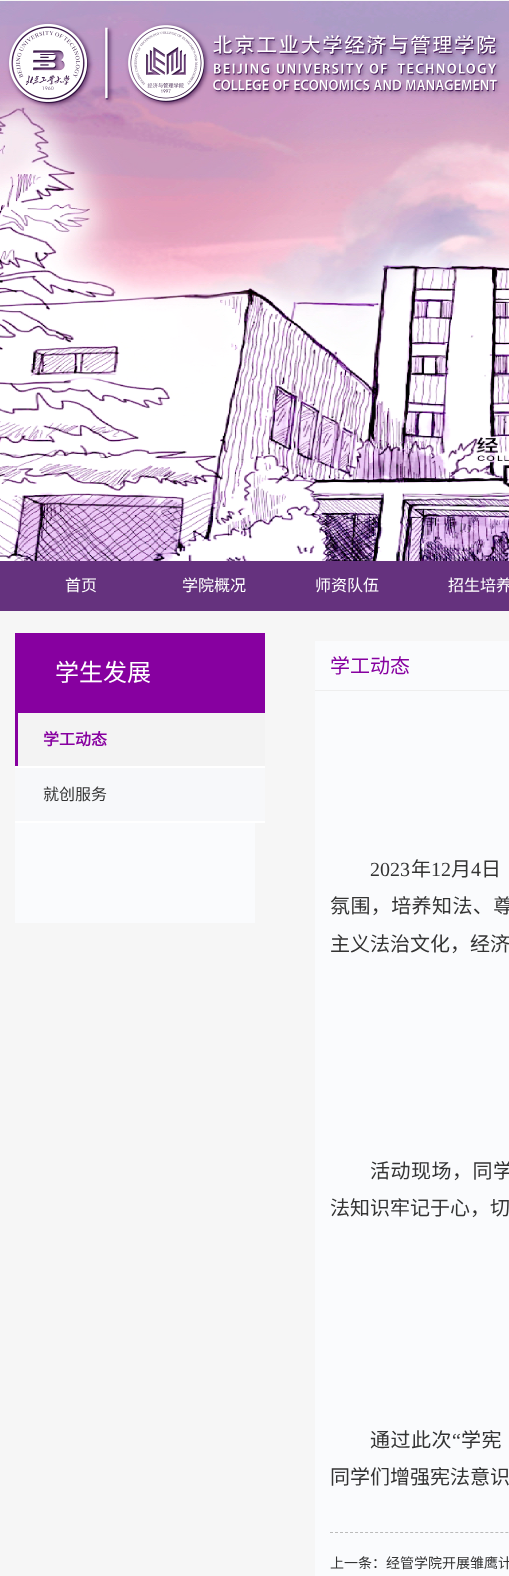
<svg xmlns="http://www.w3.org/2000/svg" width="509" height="1576">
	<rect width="100%" height="100%" fill="#F6F6F6" />
	<image x="0" y="1" width="509" height="560" href="assets/img1.png" />
	<rect x="0" y="561" width="509" height="50" fill="#65327E" />
	<g font-family="Noto Sans CJK SC" font-size="16" fill="#FFFFFF">
		<text x="65" y="591">首页</text>
		<text x="182" y="591">学院概况</text>
		<text x="315" y="591">师资队伍</text>
		<text x="448" y="591">招生培养</text>
	</g>
	<rect x="15" y="823" width="240" height="100" fill="#FAFBFD" />
	<rect x="15" y="633" width="250" height="80" fill="#8700A0" />
	<text x="55" y="681" font-family="Noto Sans CJK SC" font-size="24" fill="#FFFFFF">学生发展</text>
	<rect x="15" y="766" width="250" height="2" fill="#FFFFFF" />
	<rect x="18" y="713" width="247" height="53" fill="#F3F3F3" />
	<rect x="15" y="713" width="3" height="53" fill="#8700A0" />
	<text x="43" y="745" font-family="Noto Sans CJK SC" font-size="16" font-weight="700" fill="#8700A0">学工动态</text>
	<rect x="15" y="768" width="250" height="53" fill="#F7F8FA" />
	<rect x="15" y="821" width="250" height="2" fill="#FFFFFF" />
	<text x="43" y="800" font-family="Noto Sans CJK SC" font-size="16" fill="#333333">就创服务</text>
	<rect x="315" y="641" width="194" height="935" fill="#FAFBFD" />
	<rect x="315" y="690" width="194" height="1" fill="#EEEEEE" />
	<text x="330" y="673" font-family="Noto Sans CJK SC" font-size="20" fill="#8700A0">学工动态</text>
	<text x="370" y="876" font-family="Liberation Serif" font-size="20" fill="#333333">2023</text>
	<text x="411" y="876" font-family="Noto Sans CJK SC" font-size="20" fill="#333333">年</text>
	<text x="431" y="876" font-family="Liberation Serif" font-size="20" fill="#333333">12</text>
	<text x="451" y="876" font-family="Noto Sans CJK SC" font-size="20" fill="#333333">月</text>
	<text x="471" y="876" font-family="Liberation Serif" font-size="20" fill="#333333">4</text>
	<text x="481" y="876" font-family="Noto Sans CJK SC" font-size="20" fill="#333333">日</text>
	<text x="330" y="913" font-family="Noto Sans CJK SC" font-size="20" letter-spacing="0.4" fill="#333333">氛围，培养知法、尊</text>
	<text x="330" y="951" font-family="Noto Sans CJK SC" font-size="20" fill="#333333">主义法治文化，经济</text>
	<text x="370" y="1178" font-family="Noto Sans CJK SC" font-size="20" letter-spacing="0.5" fill="#333333">活动现场，同学</text>
	<text x="330" y="1215" font-family="Noto Sans CJK SC" font-size="20" fill="#333333">法知识牢记于心，切</text>
	<text x="370" y="1447" font-family="Noto Sans CJK SC" font-size="20" letter-spacing="0.5" fill="#333333">通过此次</text>
	<text x="452" y="1447" font-family="Liberation Serif" font-size="20" letter-spacing="0.5" fill="#333333">“</text>
	<text x="461" y="1447" font-family="Noto Sans CJK SC" font-size="20" letter-spacing="0.5" fill="#333333">学宪</text>
	<text x="330" y="1484" font-family="Noto Sans CJK SC" font-size="20" fill="#333333">同学们增强宪法意识</text>
	<path d="M330 1532.5H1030" fill="none" stroke="#BBBBBB" stroke-dasharray="3 2.01" />
	<text x="330" y="1568" font-family="Noto Sans CJK SC" font-size="14" fill="#333333">上一条：经管学院开展雏鹰计</text>
</svg>
